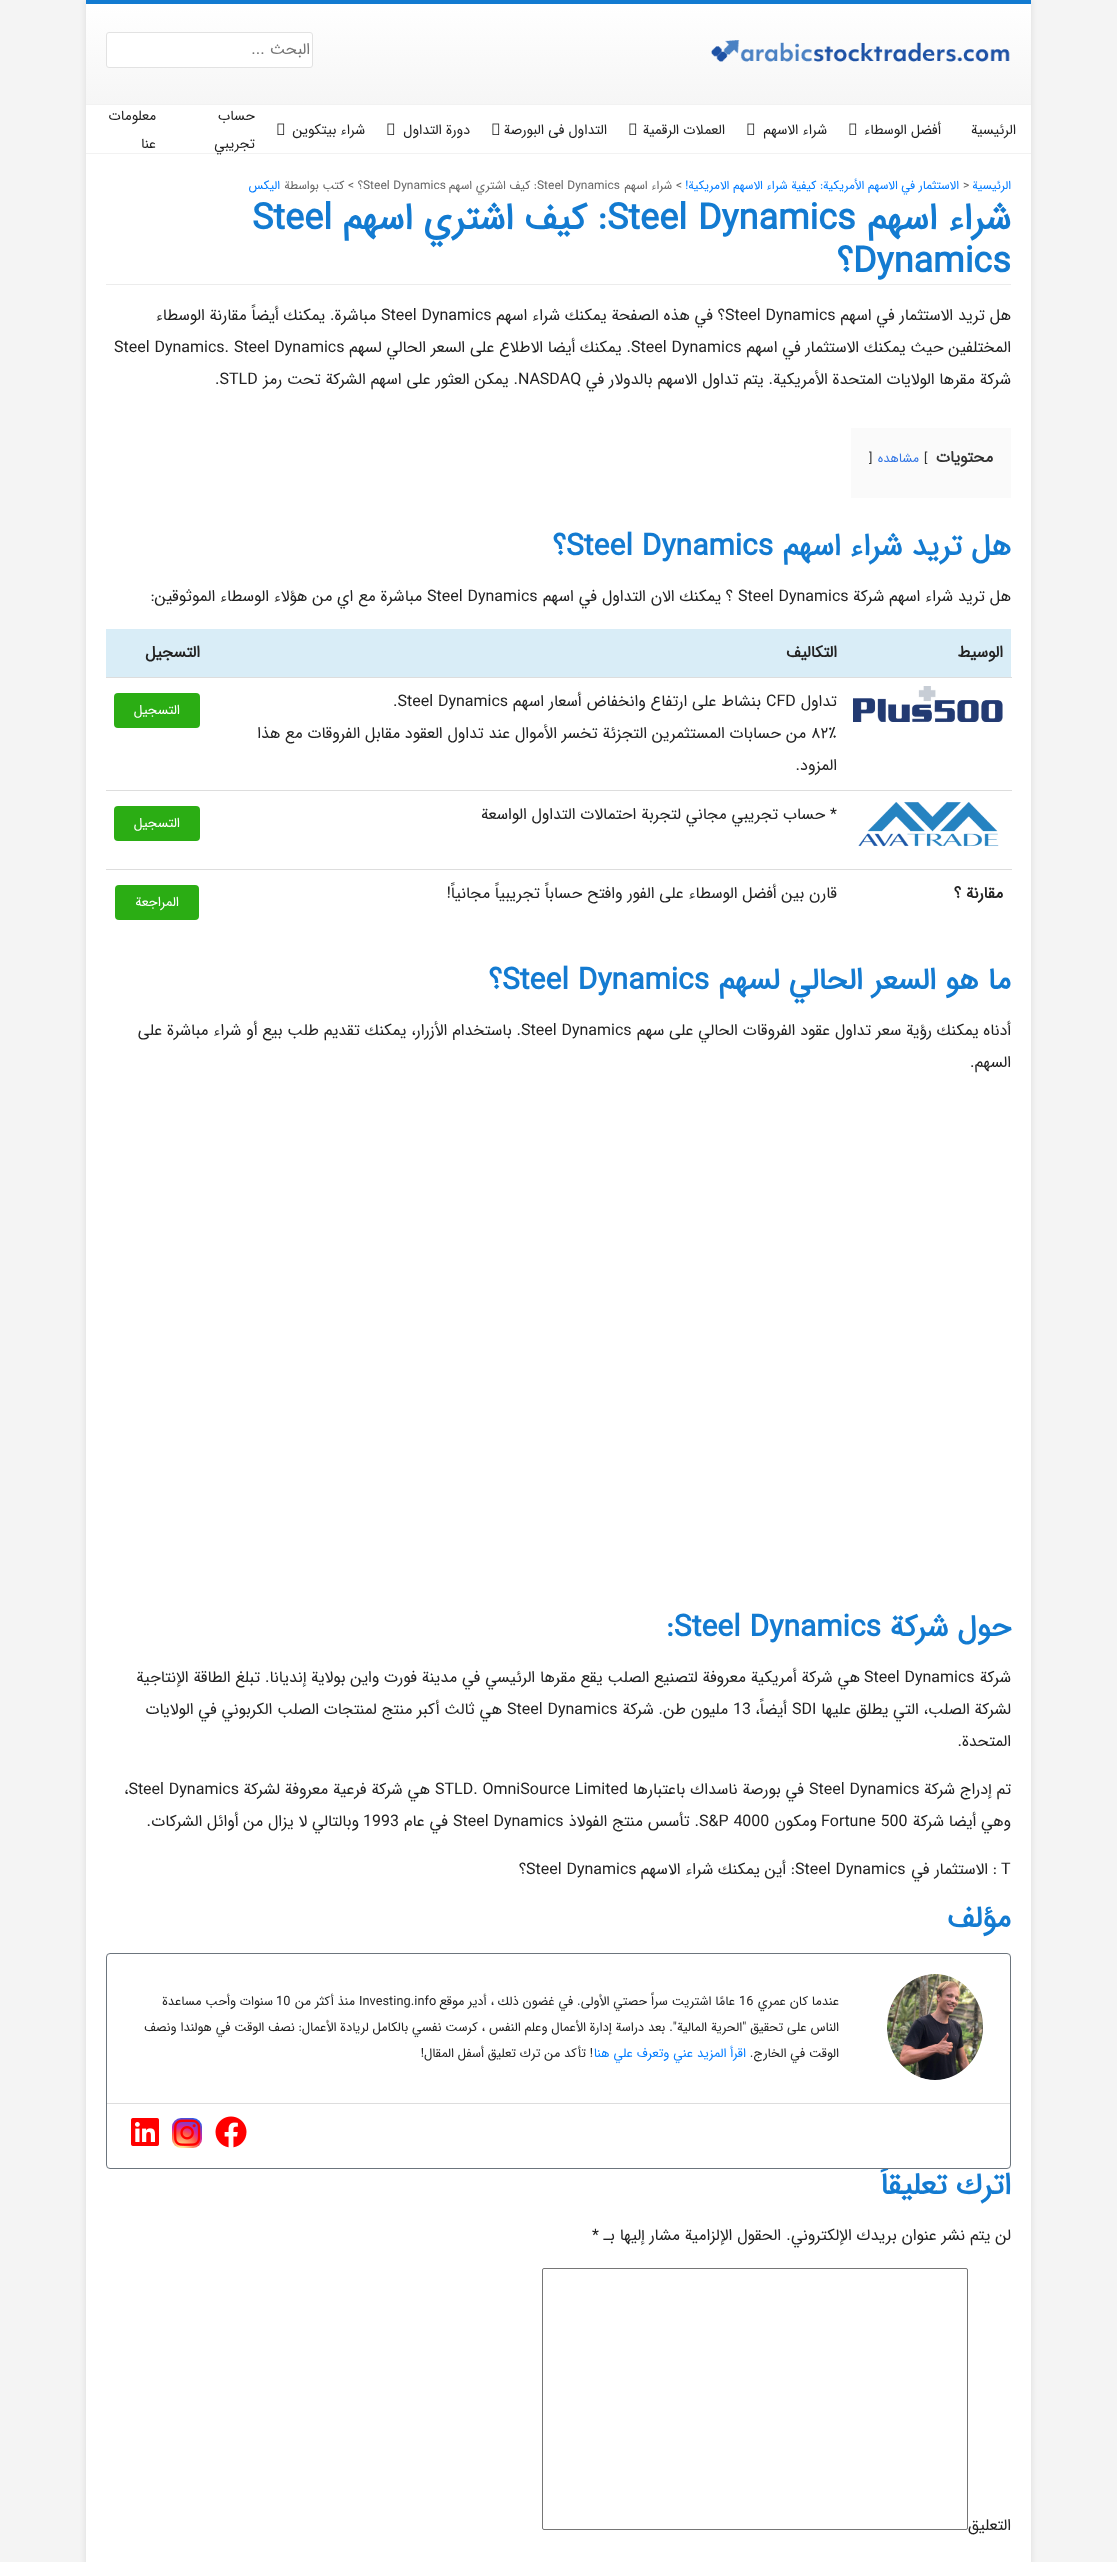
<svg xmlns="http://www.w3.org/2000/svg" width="1117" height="2562">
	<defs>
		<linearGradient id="g1" gradientUnits="userSpaceOnUse" x1="559" y1="4" x2="559" y2="104"><stop offset="0" stop-color="#FFFFFF" /><stop offset="1" stop-color="#F6F6F6" /></linearGradient>
		<radialGradient id="g2" gradientUnits="userSpaceOnUse" cx="181" cy="2150" r="38"><stop offset="0" stop-color="#FDF497" /><stop offset="0.05" stop-color="#FDF497" /><stop offset="0.45" stop-color="#FD5949" /><stop offset="0.6" stop-color="#D6249F" /><stop offset="0.9" stop-color="#285AEB" /></radialGradient>
	</defs>
	<rect width="100%" height="100%" fill="#F4F4F4" />
	<rect x="86" y="0" width="945" height="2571" fill="#000000" fill-opacity="0.1" filter="blur(3px)" />
	<rect x="86" y="105" width="945" height="2457" fill="#FFFFFF" />
	<rect x="86" y="0" width="945" height="4" fill="#137BD1" />
	<rect x="86" y="4" width="945" height="100" fill="url(#g1)" />
	<image x="711" y="40" width="299" height="22" href="assets/img1.png" />
	<rect x="106.5" y="32.5" width="206" height="35" rx="2.5" fill="#FFFFFF" stroke="#E2E2E2" />
	<text x="310" y="54" font-family="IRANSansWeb" font-size="16" direction="rtl" fill="#757575">البحث ...</text>
	<rect x="86" y="104" width="945" height="1" fill="#F2F2F2" />
	<rect x="86" y="153" width="945" height="1" fill="#F2F2F2" />
	<g font-family="IRANSansWeb" font-size="14" direction="rtl" fill="#222222">
		<text x="1016" y="134">الرئيسية</text>
		<text x="941" y="134">أفضل الوسطاء</text>
	</g>
	<image x="849" y="123" width="8" height="12" href="assets/img2.png" />
	<text x="827" y="134" font-family="IRANSansWeb" font-size="14" direction="rtl" fill="#222222">شراء الاسهم</text>
	<image x="747" y="123" width="8" height="12" href="assets/img2.png" />
	<text x="725" y="134" font-family="IRANSansWeb" font-size="14" direction="rtl" fill="#222222">العملات الرقمية</text>
	<image x="629" y="123" width="8" height="12" href="assets/img2.png" />
	<text x="607" y="134" font-family="IRANSansWeb" font-size="14" direction="rtl" fill="#222222">التداول فى البورصة</text>
	<image x="492" y="123" width="8" height="12" href="assets/img2.png" />
	<text x="470" y="134" font-family="IRANSansWeb" font-size="14" direction="rtl" fill="#222222">دورة التداول</text>
	<image x="387" y="123" width="8" height="12" href="assets/img2.png" />
	<text x="365" y="134" font-family="IRANSansWeb" font-size="14" direction="rtl" fill="#222222">شراء بيتكوين</text>
	<image x="277" y="123" width="8" height="12" href="assets/img2.png" />
	<g font-family="IRANSansWeb" font-size="14" direction="rtl" fill="#222222">
		<text x="255" y="120">حساب</text>
		<text x="255" y="148">تجريبي</text>
		<text x="156" y="120">معلومات</text>
		<text x="156" y="148">عنا</text>
	</g>
	<text x="1011" y="189" font-family="IRANSansWeb" font-size="12" direction="rtl" fill="#007BFF">الرئيسية</text>
	<text x="963" y="189" font-family="IRANSansWeb" font-size="12" fill="#666666">&gt;</text>
	<text x="959" y="189" font-family="IRANSansWeb" font-size="12" direction="rtl" fill="#007BFF">الاستثمار في الاسهم الأمريكية: كيفية شراء الاسهم الامريكية!</text>
	<text x="682" y="189" font-family="IRANSansWeb" font-size="12" direction="rtl" fill="#666666">&gt; شراء اسهم</text>
	<text x="537" y="189" font-family="IRANSansWeb" font-size="12" fill="#666666">Steel Dynamics</text>
	<text x="537" y="189" font-family="IRANSansWeb" font-size="12" direction="rtl" fill="#666666">: كيف اشتري اسهم</text>
	<text x="363" y="189" font-family="IRANSansWeb" font-size="12" fill="#666666">Steel Dynamics</text>
	<text x="363" y="189" font-family="IRANSansWeb" font-size="12" direction="rtl" fill="#666666">؟ &gt; كتب بواسطة</text>
	<text x="280" y="189" font-family="IRANSansWeb" font-size="12" direction="rtl" fill="#007BFF">اليكس</text>
	<rect x="106" y="284" width="905" height="1" fill="#ECECEC" />
	<text x="1011" y="229" font-family="IRANSansWeb" font-size="36" font-weight="700" direction="rtl" fill="#137BD1">شراء اسهم</text>
	<text x="607" y="229" font-family="IRANSansWeb" font-size="36" font-weight="700" fill="#137BD1">Steel Dynamics</text>
	<text x="607" y="229" font-family="IRANSansWeb" font-size="36" font-weight="700" direction="rtl" fill="#137BD1">: كيف اشتري اسهم</text>
	<g font-family="IRANSansWeb" font-size="36" font-weight="700" fill="#137BD1">
		<text x="252" y="229">Steel</text>
		<text x="853" y="272">Dynamics</text>
	</g>
	<text x="853" y="272" font-family="IRANSansWeb" font-size="36" font-weight="700" direction="rtl" fill="#137BD1">؟</text>
	<text x="1011" y="320" font-family="IRANSansWeb" font-size="16" direction="rtl" fill="#222222">هل تريد الاستثمار في اسهم</text>
	<text x="725" y="320" font-family="IRANSansWeb" font-size="16" fill="#222222">Steel Dynamics</text>
	<text x="725" y="320" font-family="IRANSansWeb" font-size="16" direction="rtl" fill="#222222">؟ في هذه الصفحة يمكنك شراء اسهم</text>
	<text x="381" y="320" font-family="IRANSansWeb" font-size="16" fill="#222222">Steel Dynamics</text>
	<g font-family="IRANSansWeb" font-size="16" direction="rtl" fill="#222222">
		<text x="376" y="320">مباشرة. يمكنك أيضاً مقارنة الوسطاء</text>
		<text x="1011" y="352">المختلفين حيث يمكنك الاستثمار في اسهم</text>
	</g>
	<text x="631" y="352" font-family="IRANSansWeb" font-size="16" fill="#222222">Steel Dynamics</text>
	<text x="631" y="352" font-family="IRANSansWeb" font-size="16" direction="rtl" fill="#222222">. يمكنك أيضا الاطلاع على السعر الحالي لسهم</text>
	<text x="114" y="352" font-family="IRANSansWeb" font-size="16" fill="#222222">Steel Dynamics. Steel Dynamics</text>
	<text x="1011" y="384" font-family="IRANSansWeb" font-size="16" direction="rtl" fill="#222222">شركة مقرها الولايات المتحدة الأمريكية. يتم تداول الاسهم بالدولار في</text>
	<text x="518" y="384" font-family="IRANSansWeb" font-size="16" fill="#222222">NASDAQ</text>
	<text x="518" y="384" font-family="IRANSansWeb" font-size="16" direction="rtl" fill="#222222">. يمكن العثور على اسهم الشركة تحت رمز</text>
	<text x="215" y="384" font-family="IRANSansWeb" font-size="16" fill="#222222">.STLD</text>
	<rect x="851" y="428" width="160" height="70" fill="#FAFAFA" />
	<text x="993" y="462" font-family="IRANSansWeb" font-size="16" font-weight="700" direction="rtl" fill="#333333">محتويات</text>
	<text x="924" y="462" font-family="IRANSansWeb" font-size="12.8" fill="#333333">[</text>
	<text x="919" y="462" font-family="IRANSansWeb" font-size="12.8" direction="rtl" fill="#3175E4">مشاهده</text>
	<text x="869" y="462" font-family="IRANSansWeb" font-size="12.8" fill="#333333">]</text>
	<text x="1011" y="555" font-family="IRANSansWeb" font-size="30" font-weight="700" direction="rtl" fill="#137BD1">هل تريد شراء اسهم</text>
	<text x="566" y="555" font-family="IRANSansWeb" font-size="30" font-weight="700" fill="#137BD1">Steel Dynamics</text>
	<text x="566" y="555" font-family="IRANSansWeb" font-size="30" font-weight="700" direction="rtl" fill="#137BD1">؟</text>
	<text x="1011" y="601" font-family="IRANSansWeb" font-size="16" direction="rtl" fill="#222222">هل تريد شراء اسهم شركة</text>
	<text x="738" y="601" font-family="IRANSansWeb" font-size="16" fill="#222222">Steel Dynamics</text>
	<text x="733" y="601" font-family="IRANSansWeb" font-size="16" direction="rtl" fill="#222222">؟ يمكنك الان التداول في اسهم</text>
	<text x="427" y="601" font-family="IRANSansWeb" font-size="16" fill="#222222">Steel Dynamics</text>
	<text x="422" y="601" font-family="IRANSansWeb" font-size="16" direction="rtl" fill="#222222">مباشرة مع اي من هؤلاء الوسطاء الموثوقين:</text>
	<rect x="106" y="629" width="905" height="48" fill="#D9EDF7" />
	<g font-family="IRANSansWeb" font-size="16" font-weight="700" direction="rtl" fill="#222222">
		<text x="1003" y="657">الوسيط</text>
		<text x="837" y="657">التكاليف</text>
	</g>
	<rect x="106" y="677" width="906" height="1" fill="#DDDDDD" />
	<text x="200" y="657" font-family="IRANSansWeb" font-size="16" font-weight="700" direction="rtl" fill="#222222">التسجيل</text>
	<image x="853" y="686" width="150" height="36" href="assets/img3.png" />
	<text x="837" y="706" font-family="IRANSansWeb" font-size="16" direction="rtl" fill="#222222">تداول</text>
	<text x="766" y="706" font-family="IRANSansWeb" font-size="16" fill="#222222">CFD</text>
	<text x="761" y="706" font-family="IRANSansWeb" font-size="16" direction="rtl" fill="#222222">بنشاط على ارتفاع وانخفاض أسعار اسهم</text>
	<g font-family="IRANSansWeb" font-size="16" fill="#222222">
		<text x="393" y="706">.Steel Dynamics</text>
		<text x="811" y="738">۸۲٪</text>
	</g>
	<g font-family="IRANSansWeb" font-size="16" direction="rtl" fill="#222222">
		<text x="806" y="738">من حسابات المستثمرين التجزئة تخسر الأموال عند تداول العقود مقابل الفروقات مع هذا</text>
		<text x="837" y="770">المزود.</text>
	</g>
	<rect x="114" y="693" width="86" height="35" rx="4" fill="#2BAD14" />
	<text x="180" y="714" font-family="IRANSansWeb" font-size="13.5" direction="rtl" fill="#FFFFFF">التسجيل</text>
	<image x="858" y="802" width="141" height="45" href="assets/img4.png" />
	<text x="837" y="819" font-family="IRANSansWeb" font-size="16" direction="rtl" fill="#222222">* حساب تجريبي مجاني لتجربة احتمالات التداول الواسعة</text>
	<rect x="106" y="790" width="906" height="1" fill="#DDDDDD" />
	<rect x="114" y="806" width="86" height="35" rx="4" fill="#2BAD14" />
	<text x="180" y="827" font-family="IRANSansWeb" font-size="13.5" direction="rtl" fill="#FFFFFF">التسجيل</text>
	<text x="1003" y="898" font-family="IRANSansWeb" font-size="16" font-weight="700" direction="rtl" fill="#222222">مقارنة ؟</text>
	<text x="837" y="898" font-family="IRANSansWeb" font-size="16" direction="rtl" fill="#222222">قارن بين أفضل الوسطاء على الفور وافتح حساباً تجريبياً مجانياً!</text>
	<rect x="106" y="869" width="906" height="1" fill="#DDDDDD" />
	<rect x="115" y="885" width="84" height="35" rx="4" fill="#2BAD14" />
	<text x="179" y="906" font-family="IRANSansWeb" font-size="13.5" direction="rtl" fill="#FFFFFF">المراجعة</text>
	<text x="1011" y="989" font-family="IRANSansWeb" font-size="30" font-weight="700" direction="rtl" fill="#137BD1">ما هو السعر الحالي لسهم</text>
	<text x="502" y="989" font-family="IRANSansWeb" font-size="30" font-weight="700" fill="#137BD1">Steel Dynamics</text>
	<text x="502" y="989" font-family="IRANSansWeb" font-size="30" font-weight="700" direction="rtl" fill="#137BD1">؟</text>
	<text x="1011" y="1035" font-family="IRANSansWeb" font-size="16" direction="rtl" fill="#222222">أدناه يمكنك رؤية سعر تداول عقود الفروقات الحالي على سهم</text>
	<text x="521" y="1035" font-family="IRANSansWeb" font-size="16" fill="#222222">Steel Dynamics</text>
	<g font-family="IRANSansWeb" font-size="16" direction="rtl" fill="#222222">
		<text x="521" y="1035">. باستخدام الأزرار، يمكنك تقديم طلب بيع أو شراء مباشرة على</text>
		<text x="1011" y="1067">السهم.</text>
	</g>
	<text x="1011" y="1636" font-family="IRANSansWeb" font-size="30" font-weight="700" direction="rtl" fill="#137BD1">حول شركة</text>
	<text x="666" y="1636" font-family="IRANSansWeb" font-size="30" font-weight="700" fill="#137BD1">:Steel Dynamics</text>
	<text x="1011" y="1682" font-family="IRANSansWeb" font-size="16" direction="rtl" fill="#222222">شركة</text>
	<text x="864" y="1682" font-family="IRANSansWeb" font-size="16" fill="#222222">Steel Dynamics</text>
	<g font-family="IRANSansWeb" font-size="16" direction="rtl" fill="#222222">
		<text x="860" y="1682">هي شركة أمريكية معروفة لتصنيع الصلب يقع مقرها الرئيسي في مدينة فورت واين بولاية إنديانا. تبلغ الطاقة الإنتاجية</text>
		<text x="1011" y="1714">لشركة الصلب، التي يطلق عليها</text>
	</g>
	<text x="792" y="1714" font-family="IRANSansWeb" font-size="16" fill="#222222">SDI</text>
	<text x="787" y="1714" font-family="IRANSansWeb" font-size="16" direction="rtl" fill="#222222">أيضاً،</text>
	<text x="733" y="1714" font-family="IRANSansWeb" font-size="16" fill="#222222">13</text>
	<text x="728" y="1714" font-family="IRANSansWeb" font-size="16" direction="rtl" fill="#222222">مليون طن. شركة</text>
	<text x="507" y="1714" font-family="IRANSansWeb" font-size="16" fill="#222222">Steel Dynamics</text>
	<g font-family="IRANSansWeb" font-size="16" direction="rtl" fill="#222222">
		<text x="502" y="1714">هي ثالث أكبر منتج لمنتجات الصلب الكربوني في الولايات</text>
		<text x="1011" y="1746">المتحدة.</text>
		<text x="1011" y="1794">تم إدراج شركة</text>
	</g>
	<text x="809" y="1794" font-family="IRANSansWeb" font-size="16" fill="#222222">Steel Dynamics</text>
	<text x="804" y="1794" font-family="IRANSansWeb" font-size="16" direction="rtl" fill="#222222">في بورصة ناسداك باعتبارها</text>
	<text x="435" y="1794" font-family="IRANSansWeb" font-size="16" fill="#222222">STLD. OmniSource Limited</text>
	<text x="430" y="1794" font-family="IRANSansWeb" font-size="16" direction="rtl" fill="#222222">هي شركة فرعية معروفة لشركة</text>
	<text x="124" y="1794" font-family="IRANSansWeb" font-size="16" fill="#222222">،Steel Dynamics</text>
	<text x="1011" y="1826" font-family="IRANSansWeb" font-size="16" direction="rtl" fill="#222222">وهي أيضا شركة</text>
	<text x="821" y="1826" font-family="IRANSansWeb" font-size="16" fill="#222222">Fortune 500</text>
	<text x="817" y="1826" font-family="IRANSansWeb" font-size="16" direction="rtl" fill="#222222">ومكون</text>
	<text x="699" y="1826" font-family="IRANSansWeb" font-size="16" fill="#222222">S&amp;P 4000</text>
	<text x="699" y="1826" font-family="IRANSansWeb" font-size="16" direction="rtl" fill="#222222">. تأسس منتج الفولاذ</text>
	<text x="453" y="1826" font-family="IRANSansWeb" font-size="16" fill="#222222">Steel Dynamics</text>
	<text x="448" y="1826" font-family="IRANSansWeb" font-size="16" direction="rtl" fill="#222222">في عام</text>
	<text x="363" y="1826" font-family="IRANSansWeb" font-size="16" fill="#222222">1993</text>
	<text x="359" y="1826" font-family="IRANSansWeb" font-size="16" direction="rtl" fill="#222222">وبالتالي لا يزال من أوائل الشركات.</text>
	<text x="1001" y="1874" font-family="IRANSansWeb" font-size="16" fill="#222222">T</text>
	<text x="997" y="1874" font-family="IRANSansWeb" font-size="16" direction="rtl" fill="#222222">: الاستثمار في</text>
	<text x="795" y="1874" font-family="IRANSansWeb" font-size="16" fill="#222222">Steel Dynamics</text>
	<text x="795" y="1874" font-family="IRANSansWeb" font-size="16" direction="rtl" fill="#222222">: أين يمكنك شراء الاسهم</text>
	<text x="526" y="1874" font-family="IRANSansWeb" font-size="16" fill="#222222">Steel Dynamics</text>
	<text x="526" y="1874" font-family="IRANSansWeb" font-size="16" direction="rtl" fill="#222222">؟</text>
	<g font-family="IRANSansWeb" font-size="30" font-weight="700" direction="rtl" fill="#137BD1">
		<text x="1011" y="1927">مؤلف</text>
		<text x="1011" y="2194">اترك تعليقاً</text>
	</g>
	<rect x="106.5" y="1953.5" width="904" height="215" rx="3.5" fill="#FFFFFF" stroke="#6C757D" />
	<image x="887" y="1974" width="96" height="106" href="assets/img5.png" />
	<text x="839" y="2005" font-family="IRANSansWeb" font-size="12.8" direction="rtl" fill="#222222">عندما كان عمري</text>
	<text x="739" y="2005" font-family="IRANSansWeb" font-size="12.8" fill="#222222">16</text>
	<text x="735" y="2005" font-family="IRANSansWeb" font-size="12.8" direction="rtl" fill="#222222">عامًا اشتريت سراً حصتي الأولى. في غضون ذلك ، أدير موقع</text>
	<text x="359" y="2005" font-family="IRANSansWeb" font-size="12.8" fill="#222222">Investing.info</text>
	<text x="355" y="2005" font-family="IRANSansWeb" font-size="12.8" direction="rtl" fill="#222222">منذ أكثر من</text>
	<text x="276" y="2005" font-family="IRANSansWeb" font-size="12.8" fill="#222222">10</text>
	<g font-family="IRANSansWeb" font-size="12.8" direction="rtl" fill="#222222">
		<text x="273" y="2005">سنوات وأحب مساعدة</text>
		<text x="839" y="2031">الناس على تحقيق "الحرية المالية". بعد دراسة إدارة الأعمال وعلم النفس ، كرست نفسي بالكامل لريادة الأعمال: نصف الوقت في هولندا ونصف</text>
		<text x="839" y="2057">الوقت في الخارج.</text>
	</g>
	<text x="746" y="2057" font-family="IRANSansWeb" font-size="12.8" direction="rtl" fill="#007BFF">اقرأ المزيد عني وتعرف علي هنا</text>
	<text x="593" y="2057" font-family="IRANSansWeb" font-size="12.8" direction="rtl" fill="#222222">! تأكد من ترك تعليق أسفل المقال!</text>
	<rect x="107" y="2103" width="903" height="1" fill="#DDDDDD" />
	<image x="215" y="2116" width="32" height="32" href="assets/img6.png" />
	<rect x="172" y="2118" width="30" height="30" rx="9" fill="url(#g2)" />
	<image x="174" y="2119" width="27" height="27" href="assets/img7.png" />
	<image x="131" y="2118" width="28" height="28" href="assets/img8.png" />
	<g font-family="IRANSansWeb" font-size="16" direction="rtl" fill="#222222">
		<text x="1011" y="2240">لن يتم نشر عنوان بريدك الإلكتروني.</text>
		<text x="781" y="2240">الحقول الإلزامية مشار إليها بـ</text>
	</g>
	<text x="592" y="2240" font-family="IRANSansWeb" font-size="16" fill="#222222">*</text>
	<text x="1011" y="2530" font-family="IRANSansWeb" font-size="16" direction="rtl" fill="#222222">التعليق</text>
	<rect x="542.5" y="2268.5" width="425" height="261" rx="1.5" fill="none" stroke="#767676" />
</svg>
